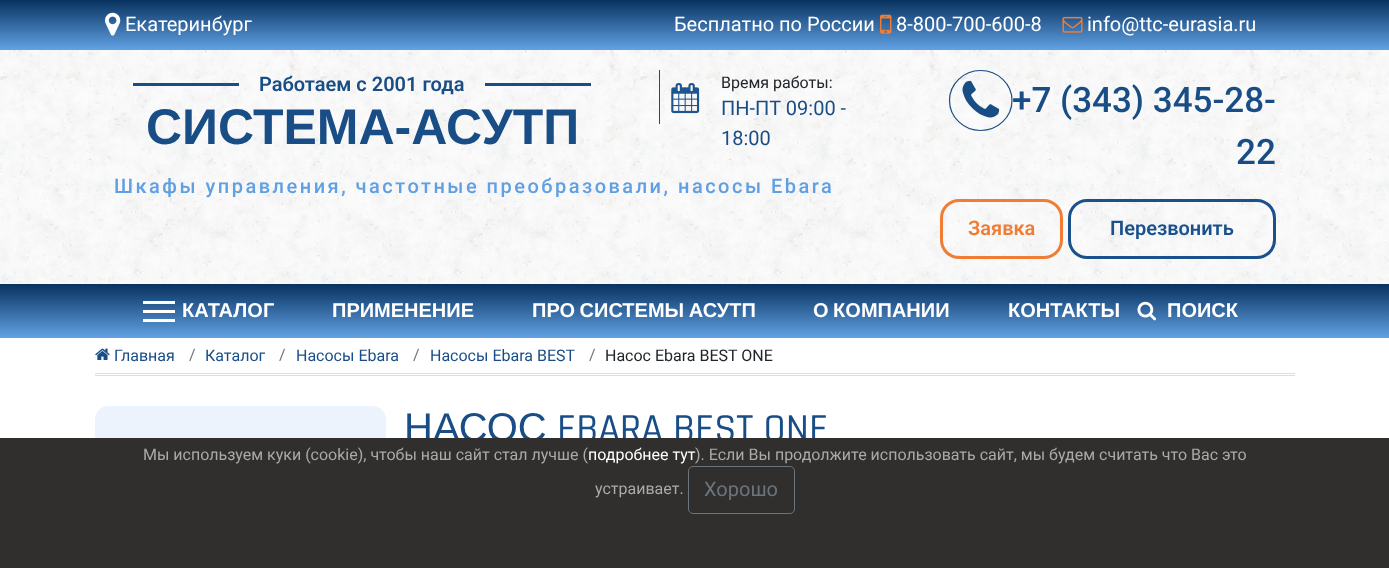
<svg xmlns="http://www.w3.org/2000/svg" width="1389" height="568">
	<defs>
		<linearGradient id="g1" gradientUnits="userSpaceOnUse" x1="695" y1="50" x2="695" y2="0"><stop offset="0" stop-color="#61A1E4" /><stop offset="1" stop-color="#08325F" /></linearGradient>
		<linearGradient id="g2" gradientUnits="userSpaceOnUse" x1="695" y1="338" x2="695" y2="284"><stop offset="0" stop-color="#61A1E4" /><stop offset="1" stop-color="#08325F" /></linearGradient>
	</defs>
	<rect width="100%" height="100%" fill="#FFFFFF" />
	<rect x="0" y="0" width="1389" height="50" fill="url(#g1)" />
	<image x="105" y="12" width="16" height="24" href="assets/img1.png" />
	<g font-family="Roboto" font-size="20" fill="#FFFFFF">
		<text x="125" y="31">Екатеринбург</text>
		<text x="674" y="31">Бесплатно по России</text>
	</g>
	<image x="880" y="14" width="12" height="20" href="assets/img2.png" />
	<text x="896" y="31" font-family="Roboto" font-size="20" fill="#FFFFFF">8-800-700-600-8</text>
	<image x="1062" y="16" width="21" height="17" href="assets/img3.png" />
	<text x="1087" y="31" font-family="Roboto" font-size="20" fill="#FFFFFF">info@ttc-eurasia.ru</text>
	<image x="0" y="50" width="1389" height="234" href="assets/img4.png" />
	<rect x="133" y="83" width="106" height="3" fill="#194D86" />
	<text x="259" y="91" font-family="Roboto" font-size="20" font-weight="600" fill="#194D86">Работаем с 2001 года</text>
	<rect x="485" y="83" width="106" height="3" fill="#194D86" />
	<text x="146" y="144" font-family="Liberation Sans" font-size="50" font-weight="700" fill="#194D86">СИСТЕМА-АСУТП</text>
	<rect x="659" y="70" width="1" height="54" fill="#194D86" />
	<image x="671" y="83" width="29" height="31" href="assets/img5.png" />
	<text x="721" y="88" font-family="Roboto" font-size="16" fill="#212529">Время работы:</text>
	<g font-family="Roboto" font-size="20" fill="#194D86">
		<text x="721" y="115">ПН-ПТ 09:00 -</text>
		<text x="721" y="145">18:00</text>
	</g>
	<text x="114" y="193" font-family="Roboto" font-size="20" font-weight="500" letter-spacing="2.5" fill="#5F9FE2">Шкафы управления, частотные преобразовали, насосы Ebara</text>
	<path d="M980.5 70.5C998 70.5 1012 84 1012 100.5C1012 117 998 130.5 980.5 130.5C963.5 130.5 949.5 117 949.5 100.5C949.5 84 963.5 70.5 980.5 70.5Z" fill="none" stroke="#194D86" stroke-width="1.2" />
	<image x="962" y="80" width="38" height="38" href="assets/img6.png" />
	<g font-family="Roboto" font-size="35" font-weight="500" fill="#194D86">
		<text x="1012" y="112">+7 (343) 345-28-</text>
		<text x="1236" y="164">22</text>
	</g>
	<rect x="941.5" y="200.5" width="120" height="57" rx="17.5" fill="none" stroke="#F07D35" stroke-width="3" />
	<text x="968" y="235" font-family="Roboto" font-size="20" font-weight="600" fill="#F07D35">Заявка</text>
	<rect x="1069.5" y="200.5" width="205" height="57" rx="17.5" fill="none" stroke="#1A518C" stroke-width="3" />
	<text x="1110" y="235" font-family="Roboto" font-size="20" font-weight="600" fill="#1A518C">Перезвонить</text>
	<rect x="0" y="284" width="1389" height="54" fill="url(#g2)" />
	<rect x="143" y="301" width="32" height="3" fill="#FFFFFF" />
	<rect x="143" y="310" width="32" height="3" fill="#FFFFFF" />
	<rect x="143" y="319" width="32" height="3" fill="#FFFFFF" />
	<g font-family="Liberation Sans" font-size="20" font-weight="700" fill="#FFFFFF">
		<text x="182" y="317">КАТАЛОГ</text>
		<text x="332" y="317">ПРИМЕНЕНИЕ</text>
		<text x="532" y="317" word-spacing="-1">ПРО СИСТЕМЫ АСУТП</text>
		<text x="813" y="317" word-spacing="-1">О КОМПАНИИ</text>
		<text x="1008" y="317">КОНТАКТЫ</text>
	</g>
	<image x="1137" y="301" width="19" height="20" href="assets/img7.png" />
	<text x="1167" y="317" font-family="Liberation Sans" font-size="20" font-weight="700" fill="#FFFFFF">ПОИСК</text>
	<rect x="95" y="373" width="1200" height="1" fill="#DDDDDD" />
	<rect x="95" y="375" width="1200" height="1" fill="#DDDDDD" />
	<image x="95" y="348" width="15" height="12" href="assets/img8.png" />
	<text x="114" y="361" font-family="Roboto" font-size="16" fill="#194D86">Главная</text>
	<text x="189" y="360" font-family="Roboto" font-size="16" fill="#6C757D">/</text>
	<text x="205" y="361" font-family="Roboto" font-size="16" fill="#194D86">Каталог</text>
	<text x="279" y="360" font-family="Roboto" font-size="16" fill="#6C757D">/</text>
	<text x="296" y="361" font-family="Roboto" font-size="16" fill="#194D86">Насосы Ebara</text>
	<text x="413" y="360" font-family="Roboto" font-size="16" fill="#6C757D">/</text>
	<text x="430" y="361" font-family="Roboto" font-size="16" fill="#194D86">Насосы Ebara BEST</text>
	<text x="589" y="360" font-family="Roboto" font-size="16" fill="#6C757D">/</text>
	<text x="605" y="361" font-family="Roboto" font-size="16" fill="#212529">Насос Ebara BEST ONE</text>
	<rect x="95.5" y="406.5" width="290" height="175" rx="12.5" fill="#ECF3FC" stroke="#EBF3FC" />
	<text x="404" y="441" font-family="Liberation Sans" font-size="40" fill="#194D86">НАСОС</text>
	<text x="557" y="441" font-family="Rajdhani" font-size="40" font-weight="500" fill="#194D86">EBARA BEST ONE</text>
	<rect x="0" y="438" width="1389" height="130" fill="#312E2E" />
	<text x="143" y="460" font-family="Roboto" font-size="16" fill="#AAAAAA">Мы используем куки (cookie), чтобы наш сайт стал лучше (</text>
	<text x="588" y="460" font-family="Roboto" font-size="16" fill="#FFFFFF">подробнее тут</text>
	<g font-family="Roboto" font-size="16" fill="#AAAAAA">
		<text x="695" y="460">). Если Вы продолжите использовать сайт, мы будем считать что Вас это</text>
		<text x="595" y="494">устраивает.</text>
	</g>
	<rect x="688.5" y="466.5" width="106" height="47" rx="4.5" fill="none" stroke="#6C757D" />
	<text x="704" y="496" font-family="Roboto" font-size="20" fill="#6C757D">Хорошо</text>
</svg>
